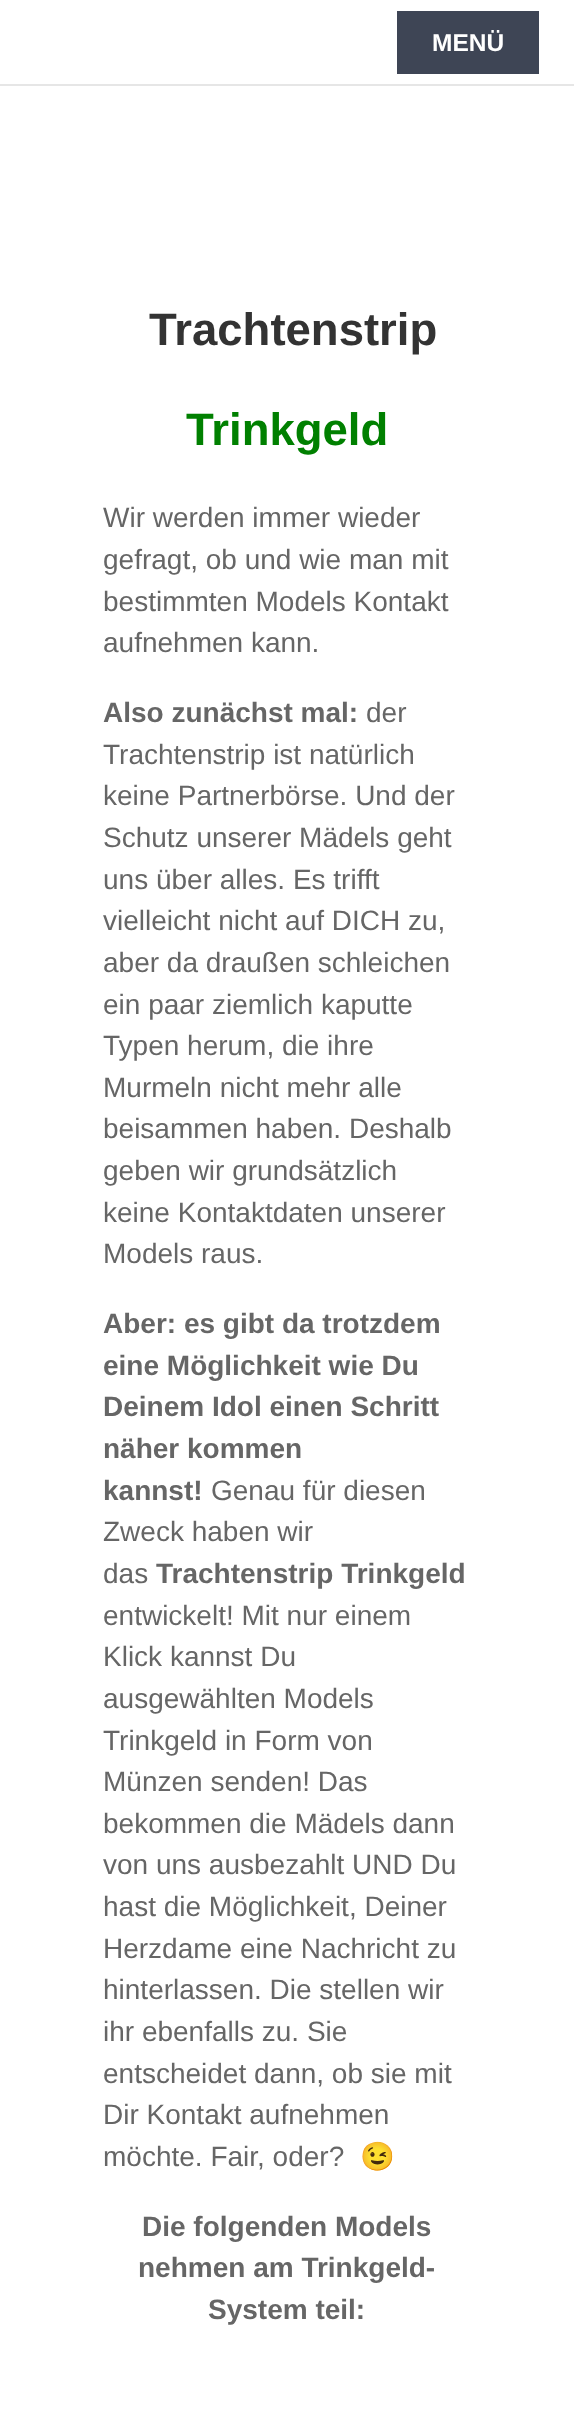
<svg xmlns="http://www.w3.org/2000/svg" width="574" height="2426">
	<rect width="100%" height="100%" fill="#FFFFFF" />
	<rect x="0" y="84" width="574" height="2" fill="#E6E6E6" />
	<rect x="397" y="11" width="142" height="63" fill="#3E4555" />
	<text x="432" y="51" font-family="Liberation Sans" font-size="24.5" font-weight="700" fill="#FFFFFF">MENÜ</text>
	<text x="149" y="345" font-family="Liberation Sans" font-size="45.5" font-weight="700" fill="#333333">Trachtenstrip</text>
	<text x="186" y="445" font-family="Liberation Sans" font-size="45.5" font-weight="700" fill="#008000">Trinkgeld</text>
	<g font-family="Liberation Sans" font-size="28" fill="#666666">
		<text x="103" y="527">Wir werden immer wieder</text>
		<text x="103" y="569">gefragt, ob und wie man mit</text>
		<text x="103" y="611">bestimmten Models Kontakt</text>
		<text x="103" y="652">aufnehmen kann.</text>
	</g>
	<text x="103" y="722" font-family="Liberation Sans" font-size="28" font-weight="700" fill="#666666">Also zunächst mal:</text>
	<g font-family="Liberation Sans" font-size="28" fill="#666666">
		<text x="366" y="722">der</text>
		<text x="103" y="764">Trachtenstrip ist natürlich</text>
		<text x="103" y="805">keine Partnerbörse. Und der</text>
		<text x="103" y="847">Schutz unserer Mädels geht</text>
		<text x="103" y="889">uns über alles. Es trifft</text>
		<text x="103" y="930">vielleicht nicht auf DICH zu,</text>
		<text x="103" y="972">aber da draußen schleichen</text>
		<text x="103" y="1014">ein paar ziemlich kaputte</text>
		<text x="103" y="1055">Typen herum, die ihre</text>
		<text x="103" y="1097">Murmeln nicht mehr alle</text>
		<text x="103" y="1138">beisammen haben. Deshalb</text>
		<text x="103" y="1180">geben wir grundsätzlich</text>
		<text x="103" y="1222">keine Kontaktdaten unserer</text>
		<text x="103" y="1263">Models raus.</text>
	</g>
	<g font-family="Liberation Sans" font-size="28" font-weight="700" fill="#666666">
		<text x="103" y="1333">Aber: es gibt da trotzdem</text>
		<text x="103" y="1375">eine Möglichkeit wie Du</text>
		<text x="103" y="1416">Deinem Idol einen Schritt</text>
		<text x="103" y="1458">näher kommen</text>
		<text x="103" y="1500">kannst!</text>
	</g>
	<g font-family="Liberation Sans" font-size="28" fill="#666666">
		<text x="211" y="1500">Genau für diesen</text>
		<text x="103" y="1541">Zweck haben wir</text>
		<text x="103" y="1583">das</text>
	</g>
	<text x="156" y="1583" font-family="Liberation Sans" font-size="28" font-weight="700" fill="#666666">Trachtenstrip Trinkgeld</text>
	<g font-family="Liberation Sans" font-size="28" fill="#666666">
		<text x="103" y="1625">entwickelt! Mit nur einem</text>
		<text x="103" y="1666">Klick kannst Du</text>
		<text x="103" y="1708">ausgewählten Models</text>
		<text x="103" y="1750">Trinkgeld in Form von</text>
		<text x="103" y="1791">Münzen senden! Das</text>
		<text x="103" y="1833">bekommen die Mädels dann</text>
		<text x="103" y="1874">von uns ausbezahlt UND Du</text>
		<text x="103" y="1916">hast die Möglichkeit, Deiner</text>
		<text x="103" y="1958">Herzdame eine Nachricht zu</text>
		<text x="103" y="1999">hinterlassen. Die stellen wir</text>
		<text x="103" y="2041">ihr ebenfalls zu. Sie</text>
		<text x="103" y="2083">entscheidet dann, ob sie mit</text>
		<text x="103" y="2124">Dir Kontakt aufnehmen</text>
		<text x="103" y="2166">möchte. Fair, oder?</text>
	</g>
	<text x="360" y="2166" font-family="Noto Color Emoji" font-size="28" fill="#666666">😉</text>
	<g font-family="Liberation Sans" font-size="28" font-weight="700" fill="#666666">
		<text x="142" y="2236">Die folgenden Models</text>
		<text x="138" y="2277">nehmen am Trinkgeld-</text>
		<text x="208" y="2319">System teil:</text>
	</g>
</svg>
